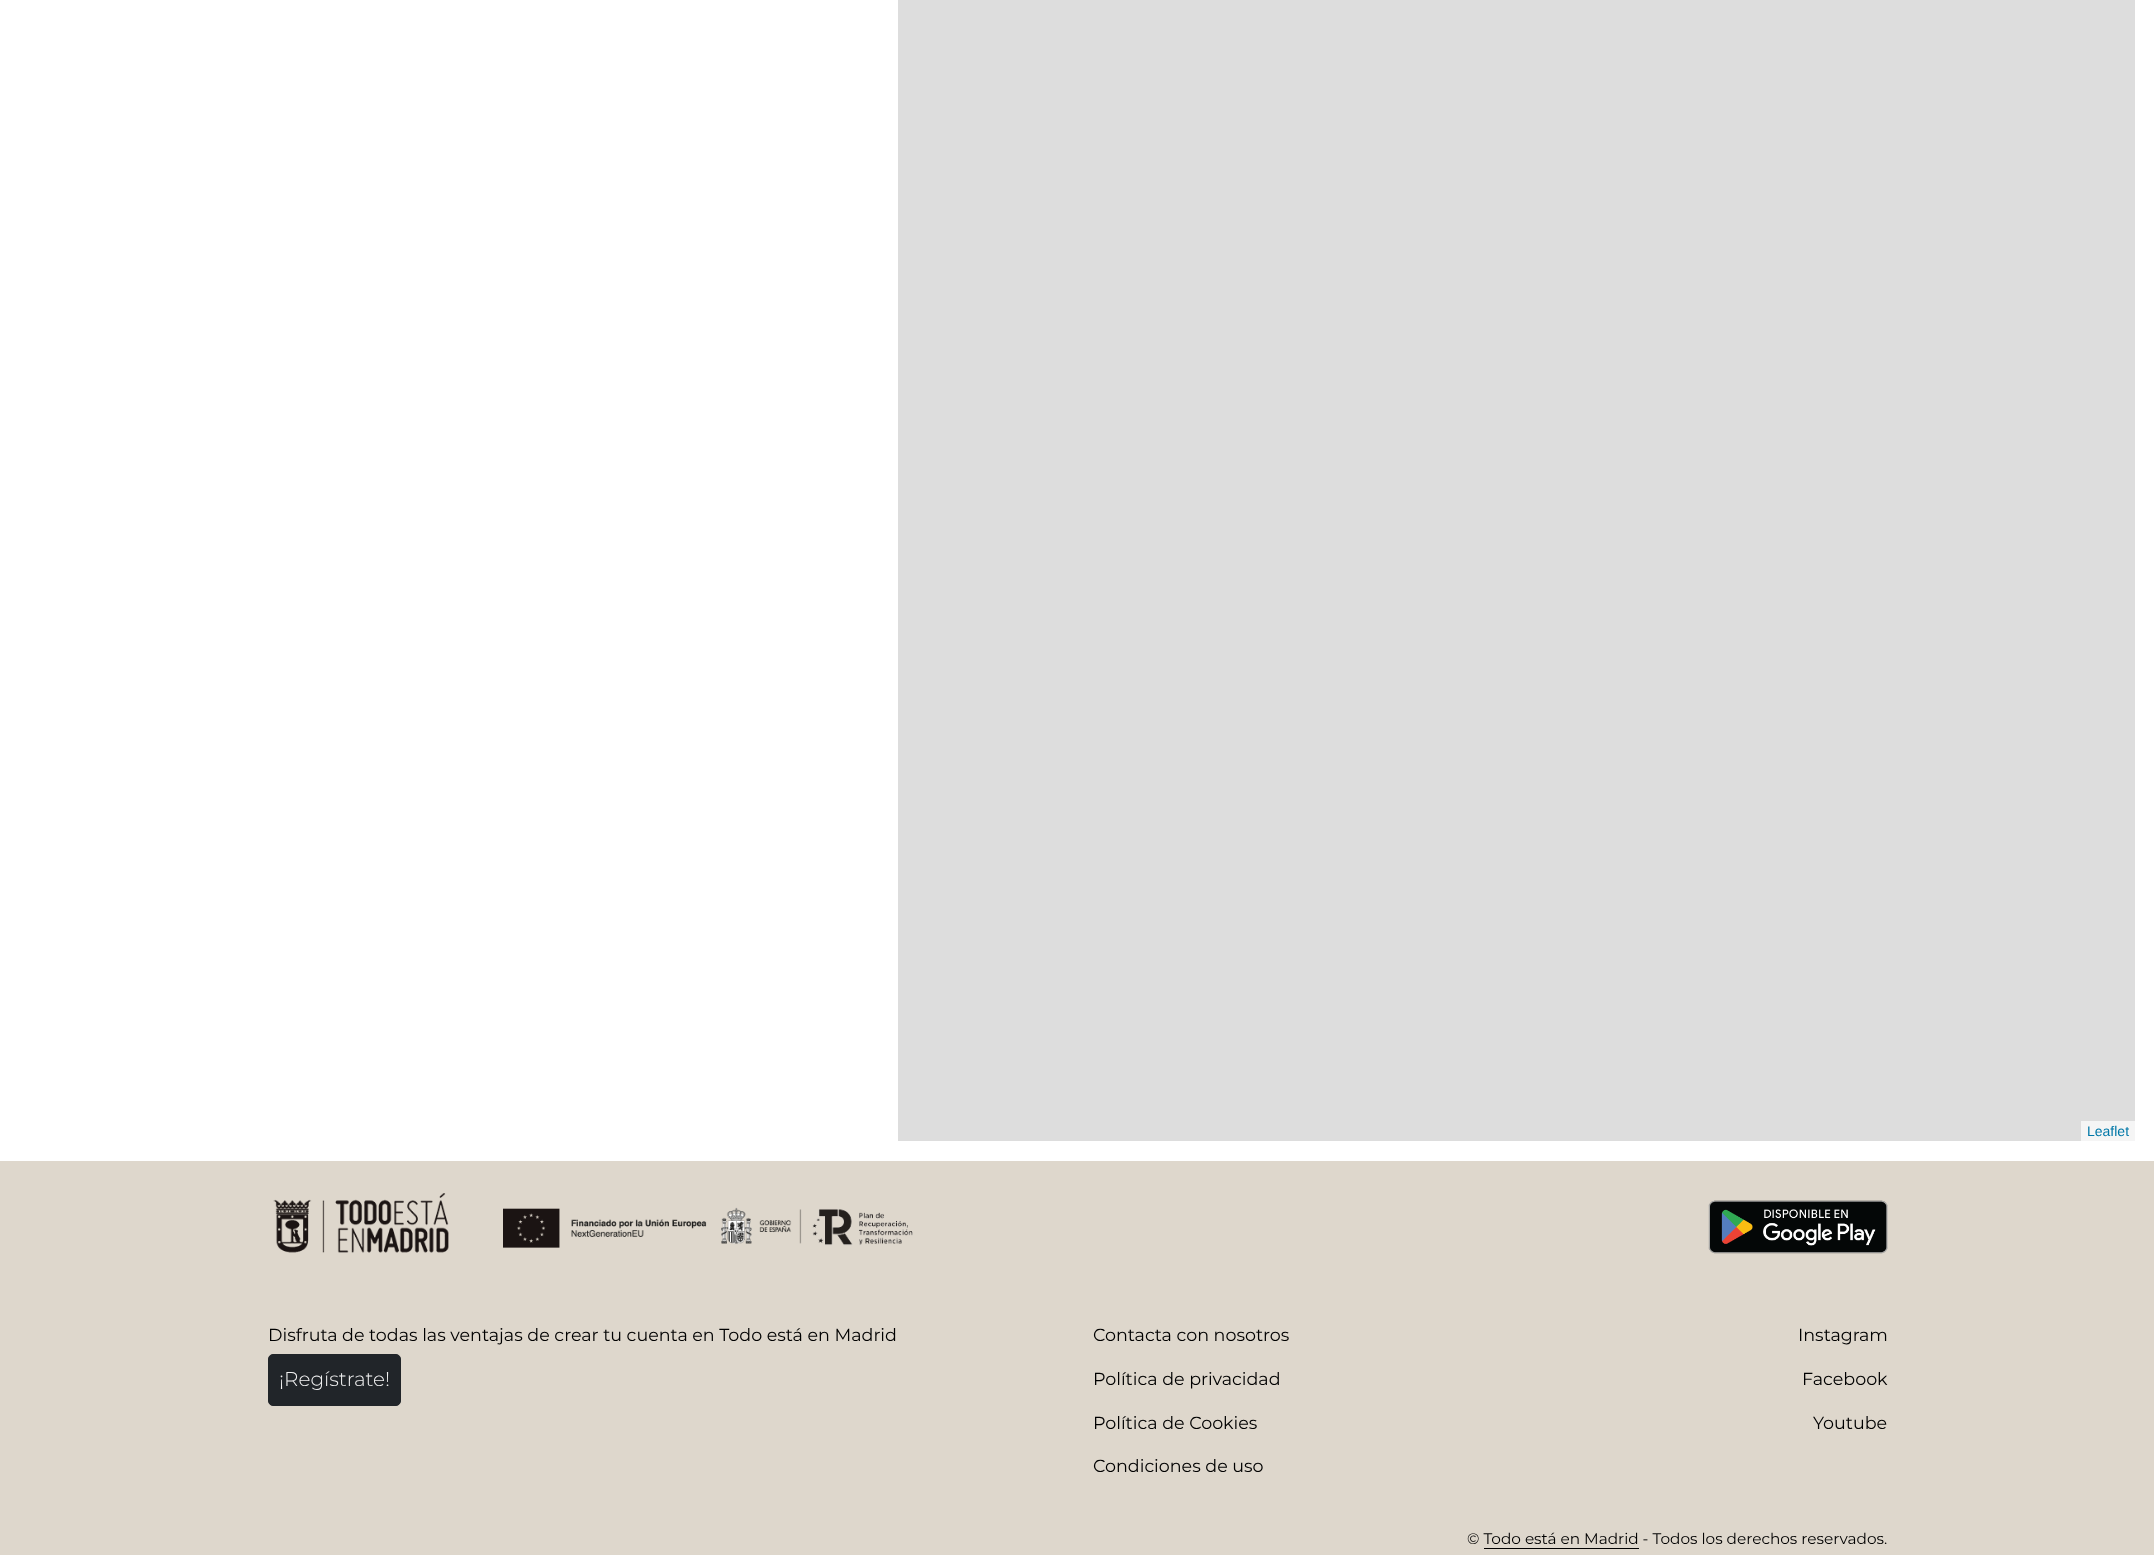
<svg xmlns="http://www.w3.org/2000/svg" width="2154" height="1555">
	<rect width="100%" height="100%" fill="#FFFFFF" />
	<rect x="898" y="0" width="1237" height="1141" fill="#DDDDDD" />
	<rect x="2081" y="1121" width="54" height="20" fill="#F5F5F5" />
	<text x="2087" y="1136" font-family="Liberation Sans" font-size="14" fill="#0078A8">Leaflet</text>
	<rect x="0" y="1161" width="2154" height="394" fill="#DED7CC" />
	<image x="273" y="1193" width="640" height="60" href="assets/img1.png" />
	<image x="1708" y="1200" width="180" height="54" href="assets/img2.png" />
	<text x="268" y="1341" font-family="Montserrat" font-size="17.5" fill="#000000">Disfruta de todas las ventajas de crear tu cuenta en Todo está en Madrid</text>
	<rect x="268.5" y="1354.5" width="132" height="51" rx="4.5" fill="#212529" stroke="#212529" />
	<text x="279" y="1386" font-family="Montserrat" font-size="20" font-weight="300" fill="#F2F2F2">¡Regístrate!</text>
	<g font-family="Montserrat" font-size="17.5" fill="#000000">
		<text x="1093" y="1341">Contacta con nosotros</text>
		<text x="1093" y="1385">Política de privacidad</text>
		<text x="1093" y="1429">Política de Cookies</text>
		<text x="1093" y="1472">Condiciones de uso</text>
		<text x="1798" y="1341">Instagram</text>
		<text x="1802" y="1385">Facebook</text>
		<text x="1813" y="1429">Youtube</text>
	</g>
	<text x="1467" y="1544" font-family="Montserrat" font-size="15.3" fill="#000000">© Todo está en Madrid - Todos los derechos reservados.</text>
	<rect x="1484" y="1548" width="155" height="1" fill="#000000" />
</svg>
